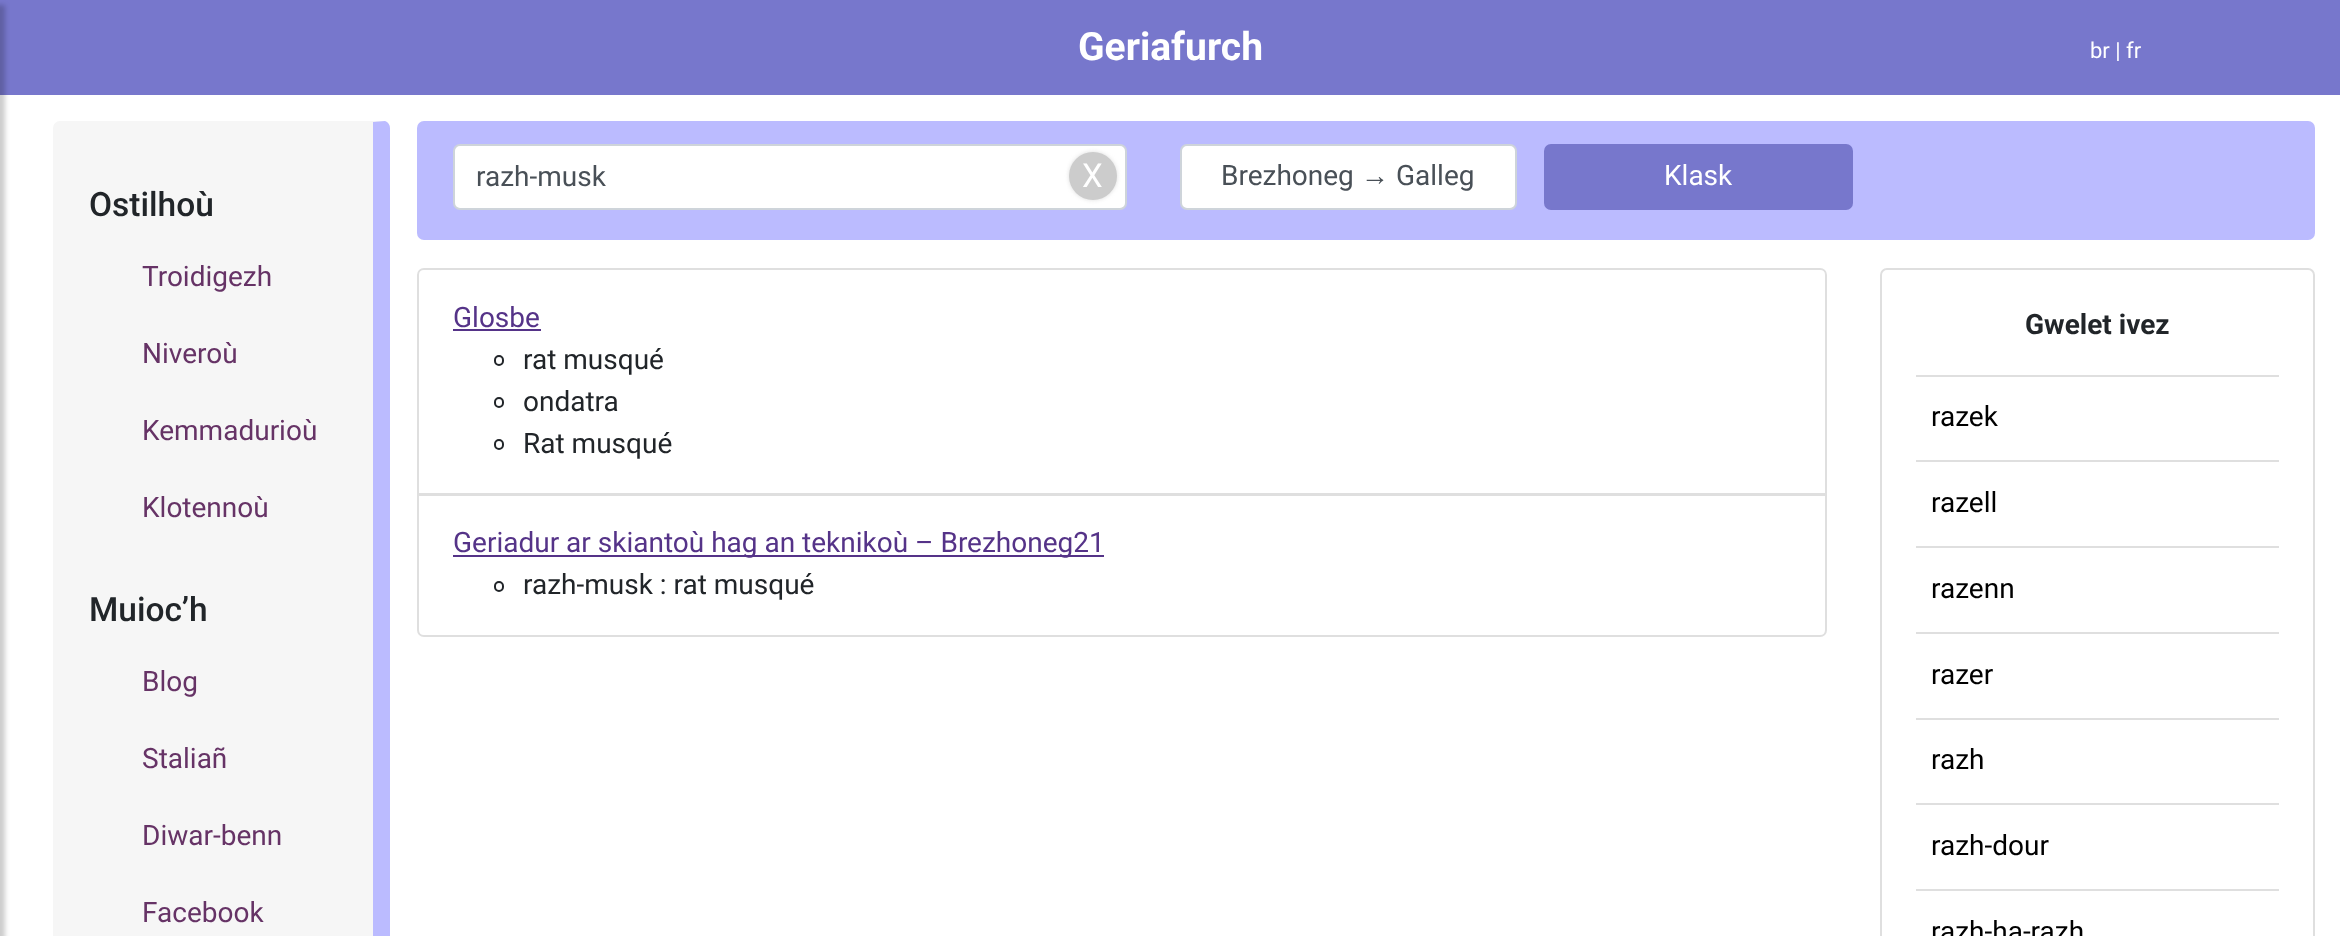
<svg xmlns="http://www.w3.org/2000/svg" width="2340" height="936">
	<rect width="100%" height="100%" fill="#FFFFFF" />
	<rect x="0" y="0" width="2340" height="95" fill="#7777CC" />
	<rect x="-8" y="5" width="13" height="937" fill="#000000" fill-opacity="0.2" filter="blur(2.5px)" />
	<text x="1078" y="60" font-family="Roboto" font-size="39" font-weight="700" fill="#FFFFFF">Geriafurch</text>
	<text x="2090" y="58" font-family="Roboto" font-size="22" fill="#FFFFFF">br | fr</text>
	<rect x="53" y="121" width="337" height="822" rx="7" fill="#F6F6F6" />
	<path d="M385 121C388 122 390 125 390 128V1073C390 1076 388 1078 386 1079L373 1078V122Z" fill="#BBBBFF" />
	<text x="89" y="216" font-family="Roboto" font-size="33.5" font-weight="500" fill="#212529">Ostilhoù</text>
	<g font-family="Roboto" font-size="28" fill="#663366">
		<text x="142" y="286">Troidigezh</text>
		<text x="142" y="363">Niveroù</text>
		<text x="142" y="440">Kemmadurioù</text>
		<text x="142" y="517">Klotennoù</text>
	</g>
	<text x="89" y="621" font-family="Roboto" font-size="33.5" font-weight="500" fill="#212529">Muiocʼh</text>
	<g font-family="Roboto" font-size="28" fill="#663366">
		<text x="142" y="691">Blog</text>
		<text x="142" y="768">Staliañ</text>
		<text x="142" y="845">Diwar-benn</text>
		<text x="142" y="922">Facebook</text>
	</g>
	<rect x="417" y="121" width="1898" height="119" rx="7" fill="#BBBBFF" />
	<rect x="454" y="145" width="672" height="64" rx="6" fill="#FFFFFF" stroke="#CED4DA" stroke-width="2" />
	<text x="476" y="186" font-family="Roboto" font-size="28" fill="#495057">razh-musk</text>
	<rect x="1069" y="152" width="48" height="48" rx="24" fill="#DDDDDD" filter="blur(2px)" />
	<circle cx="1093" cy="176" r="24" fill="#CCCCCC" />
	<text x="1082" y="187" font-family="Roboto" font-size="33" fill="#FFFFFF">X</text>
	<rect x="1181" y="145" width="335" height="64" rx="6" fill="#FFFFFF" stroke="#CED4DA" stroke-width="2" />
	<text x="1221" y="185" font-family="Roboto" font-size="28" fill="#495057">Brezhoneg</text>
	<text x="1361" y="185" font-family="Liberation Sans" font-size="28" fill="#495057">→</text>
	<text x="1396" y="185" font-family="Roboto" font-size="28" fill="#495057">Galleg</text>
	<rect x="1544" y="144" width="309" height="66" rx="7" fill="#7777CC" />
	<text x="1664" y="185" font-family="Roboto" font-size="28" fill="#FFFFFF">Klask</text>
	<path d="M424 269H1820C1823.5 269 1826 271.5 1826 275V494H418V275C418 271.5 420.5 269 424 269Z" fill="none" stroke="#DFDFDF" stroke-width="2" />
	<text x="453" y="327" font-family="Roboto" font-size="28" fill="#553388">Glosbe</text>
	<rect x="453" y="329" width="88" height="2" fill="#553388" />
	<rect x="495" y="356" width="8" height="9" rx="4" fill="none" stroke="#212529" stroke-width="2" />
	<text x="523" y="369" font-family="Roboto" font-size="28" fill="#212529">rat musqué</text>
	<rect x="495" y="398" width="8" height="9" rx="4" fill="none" stroke="#212529" stroke-width="2" />
	<text x="523" y="411" font-family="Roboto" font-size="28" fill="#212529">ondatra</text>
	<rect x="495" y="440" width="8" height="9" rx="4" fill="none" stroke="#212529" stroke-width="2" />
	<text x="523" y="453" font-family="Roboto" font-size="28" fill="#212529">Rat musqué</text>
	<path d="M418 495H1826V630C1826 633.5 1823.5 636 1820 636H424C420.5 636 418 633.5 418 630Z" fill="#FFFFFF" stroke="#DFDFDF" stroke-width="2" />
	<rect x="453" y="555" width="651" height="2" fill="#553388" />
	<text x="453" y="552" font-family="Roboto" font-size="28" fill="#553388">Geriadur ar skiantoù hag an teknikoù – Brezhoneg21</text>
	<rect x="495" y="582" width="8" height="9" rx="4" fill="none" stroke="#212529" stroke-width="2" />
	<text x="523" y="594" font-family="Roboto" font-size="28" fill="#212529">razh-musk : rat musqué</text>
	<rect x="1881" y="269" width="433" height="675" rx="6" fill="none" stroke="#DFDFDF" stroke-width="2" />
	<text x="2025" y="334" font-family="Roboto" font-size="28" font-weight="700" fill="#212529">Gwelet ivez</text>
	<rect x="1916" y="375" width="363" height="2" fill="#DFDFDF" />
	<text x="1931" y="426" font-family="Roboto" font-size="28" fill="#000000">razek</text>
	<rect x="1916" y="460" width="363" height="2" fill="#DFDFDF" />
	<text x="1931" y="512" font-family="Roboto" font-size="28" fill="#000000">razell</text>
	<rect x="1916" y="546" width="363" height="2" fill="#DFDFDF" />
	<text x="1931" y="598" font-family="Roboto" font-size="28" fill="#000000">razenn</text>
	<rect x="1916" y="632" width="363" height="2" fill="#DFDFDF" />
	<text x="1931" y="684" font-family="Roboto" font-size="28" fill="#000000">razer</text>
	<rect x="1916" y="718" width="363" height="2" fill="#DFDFDF" />
	<text x="1931" y="769" font-family="Roboto" font-size="28" fill="#000000">razh</text>
	<rect x="1916" y="803" width="363" height="2" fill="#DFDFDF" />
	<text x="1931" y="855" font-family="Roboto" font-size="28" fill="#000000">razh-dour</text>
	<rect x="1916" y="889" width="363" height="2" fill="#DFDFDF" />
	<text x="1931" y="941" font-family="Roboto" font-size="28" fill="#000000">razh-ha-razh</text>
</svg>
